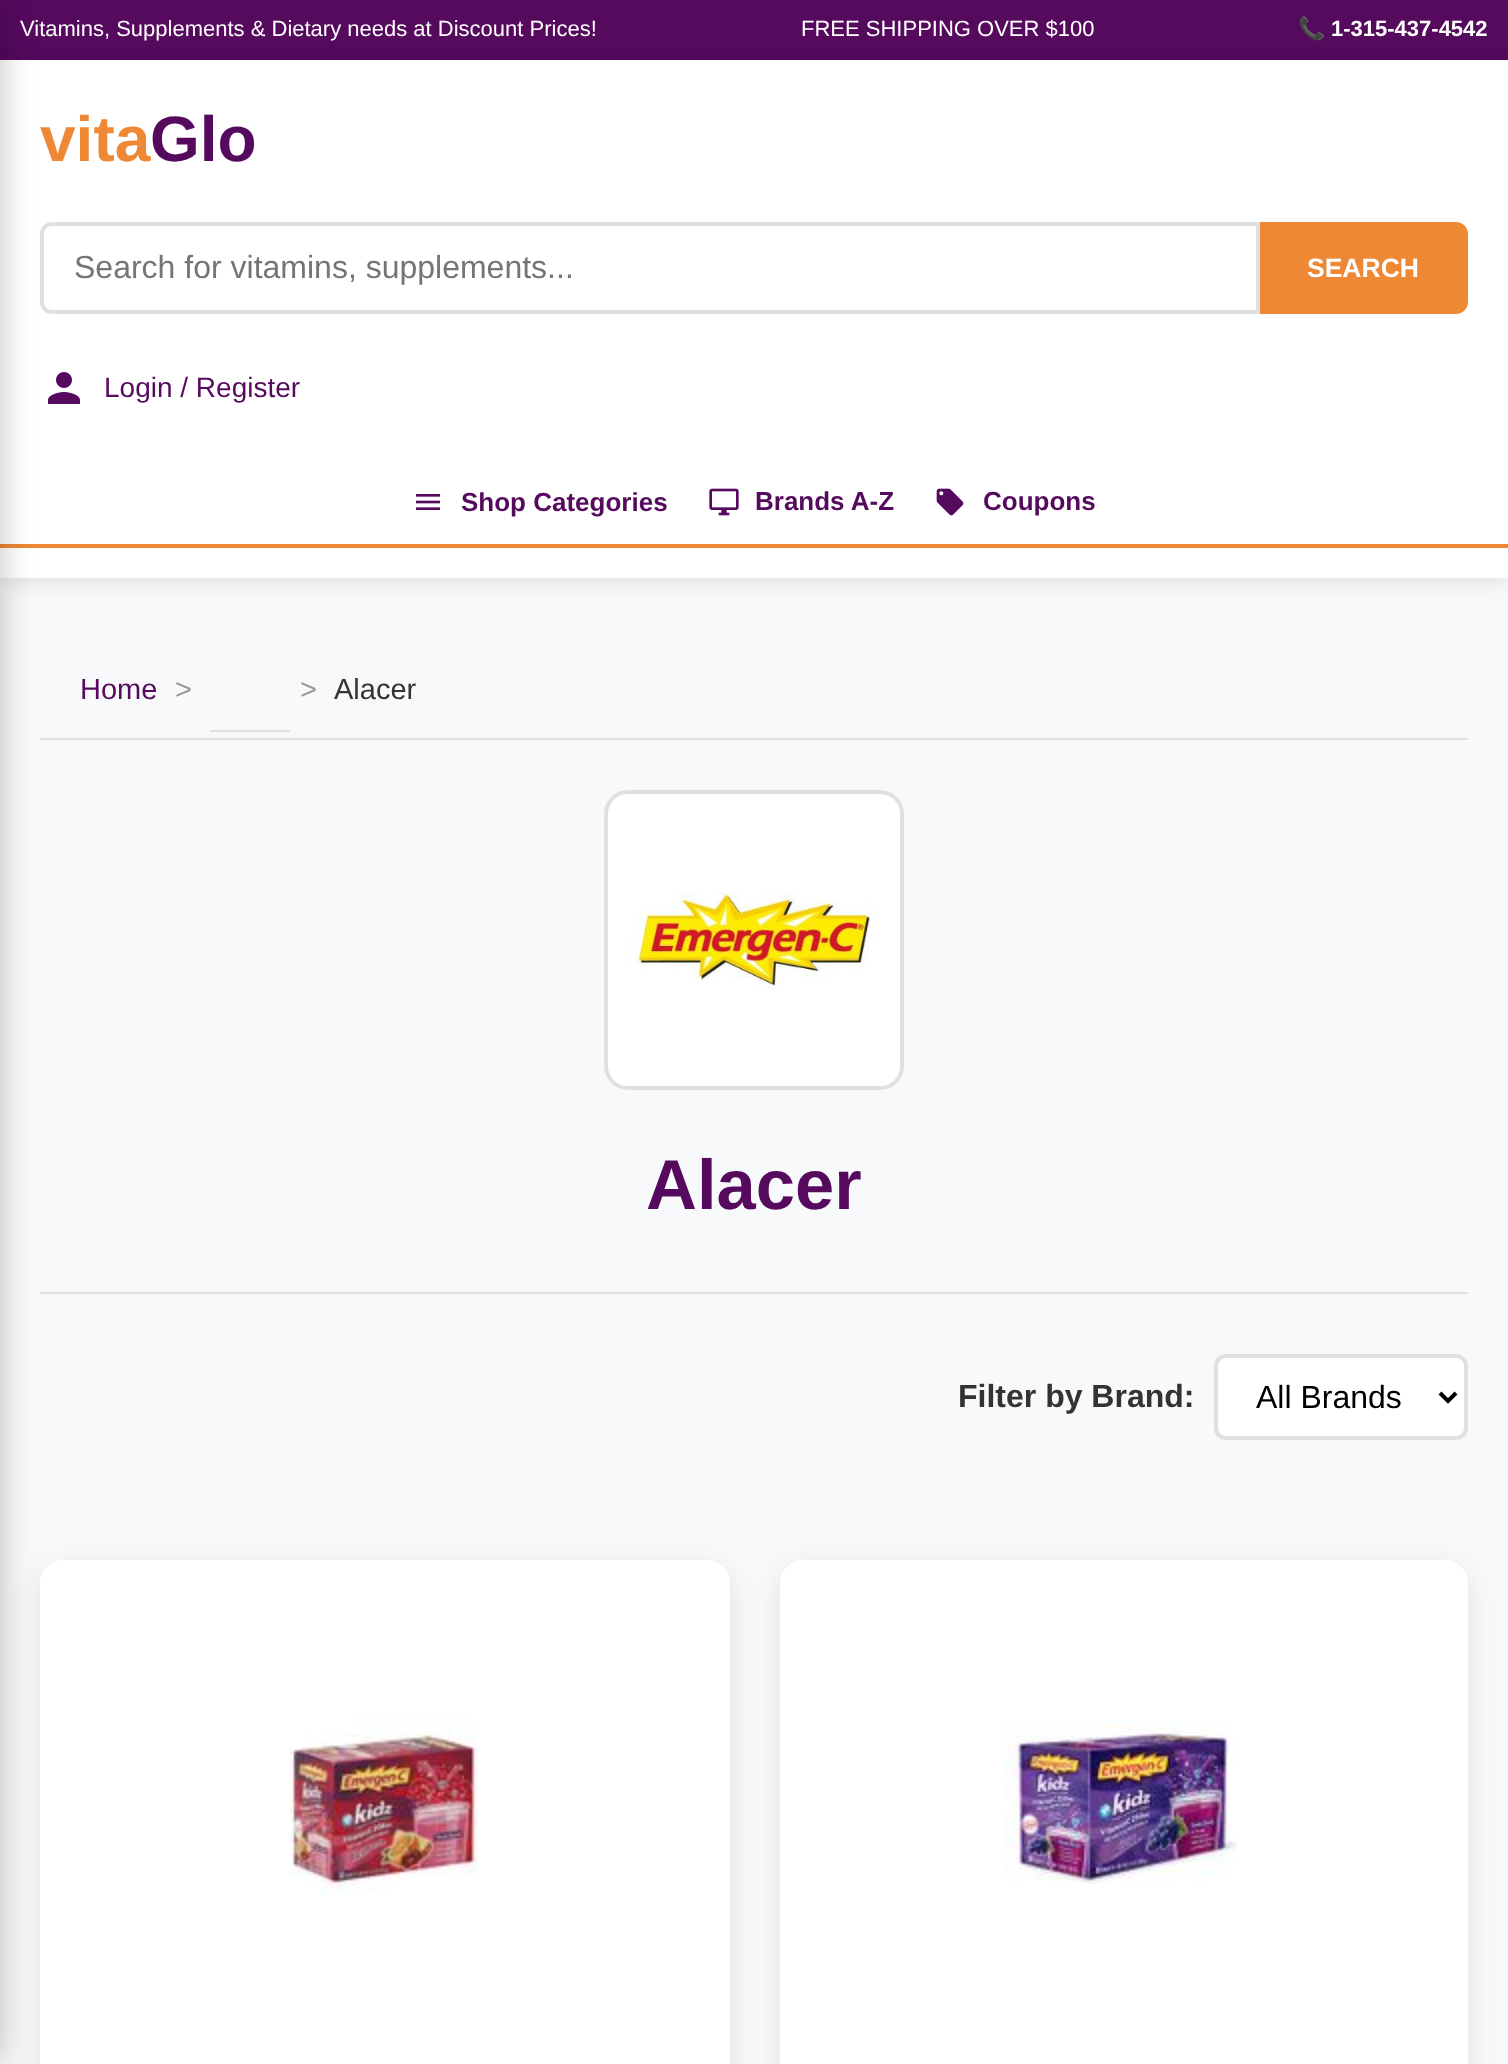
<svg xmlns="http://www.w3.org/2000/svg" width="1508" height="2064">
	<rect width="100%" height="100%" fill="#F8F9FA" />
	<rect x="0" y="0" width="1508" height="60" fill="#560A5E" />
	<rect x="0" y="64" width="1508" height="518" fill="#000000" fill-opacity="0.1" filter="blur(10px)" />
	<rect x="0" y="60" width="1508" height="518" fill="#FFFFFF" />
	<path d="M52 224H1258V312H52C46.5 312 42 307.5 42 302V234C42 228.5 46.5 224 52 224Z" fill="none" stroke="#E0E0E0" stroke-width="4" />
	<image x="48" y="372" width="32" height="32" href="assets/img1.png" />
	<rect x="0" y="544" width="1508" height="4" fill="#EF8834" />
	<rect x="40" y="738" width="1428" height="2" fill="#E0E0E0" />
	<rect x="40" y="1292" width="1428" height="2" fill="#E0E0E0" />
	<rect x="40" y="1570" width="690" height="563" rx="24" fill="#000000" fill-opacity="0.1" filter="blur(15px)" />
	<rect x="40" y="1560" width="690" height="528" rx="24" fill="#FFFFFF" />
	<path d="M64 1560H706C719.5 1560 730 1570.5 730 1584V2060H40V1584C40 1570.5 50.5 1560 64 1560Z" fill="#FFFFFF" />
	<rect x="-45" y="0" width="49" height="2064" fill="#000000" fill-opacity="0.2" filter="blur(15px)" />
	<g font-family="Liberation Sans" font-size="22" fill="#FFFFFF">
		<text x="20" y="36">Vitamins, Supplements &amp; Dietary needs at Discount Prices!</text>
		<text x="801" y="36">FREE SHIPPING OVER $100</text>
	</g>
	<text x="1298" y="36" font-family="Noto Color Emoji" font-size="22" font-weight="700" fill="#FFFFFF">📞</text>
	<text x="1331" y="36" font-family="Liberation Sans" font-size="22" font-weight="700" fill="#FFFFFF">1-315-437-4542</text>
	<text x="40" y="161" font-family="Liberation Sans" font-size="64" font-weight="700" fill="#EF8834">vita</text>
	<text x="150" y="161" font-family="Liberation Sans" font-size="64" font-weight="700" fill="#560A5E">Glo</text>
	<text x="74" y="278" font-family="Liberation Sans" font-size="32" fill="#757575">Search for vitamins, supplements...</text>
	<path d="M1260 222H1456C1462.5 222 1468 227.5 1468 234V302C1468 308.5 1462.5 314 1456 314H1260Z" fill="#EF8834" />
	<text x="1307" y="277" font-family="Liberation Sans" font-size="26.5" font-weight="700" fill="#FFFFFF">SEARCH</text>
	<text x="104" y="397" font-family="Liberation Sans" font-size="28" fill="#560A5E">Login / Register</text>
	<image x="416" y="494" width="24" height="16" href="assets/img2.png" />
	<text x="461" y="511" font-family="Liberation Sans" font-size="26" font-weight="700" fill="#560A5E">Shop Categories</text>
	<image x="709" y="488" width="30" height="28" href="assets/img3.png" />
	<text x="755" y="510" font-family="Liberation Sans" font-size="26" font-weight="700" fill="#560A5E">Brands A-Z</text>
	<image x="936" y="488" width="28" height="28" href="assets/img4.png" />
	<text x="983" y="510" font-family="Liberation Sans" font-size="26" font-weight="700" fill="#560A5E">Coupons</text>
	<text x="80" y="699" font-family="Liberation Sans" font-size="29" fill="#560A5E">Home</text>
	<g font-family="Liberation Sans" font-size="29" fill="#999999">
		<text x="175" y="699">&gt;</text>
		<text x="300" y="699">&gt;</text>
	</g>
	<text x="334" y="699" font-family="Liberation Sans" font-size="29" fill="#333333">Alacer</text>
	<rect x="210" y="730" width="80" height="2" fill="#E0E0E0" />
	<rect x="606" y="792" width="296" height="296" rx="22" fill="#FFFFFF" stroke="#E0E0E0" stroke-width="4" />
	<image x="628" y="891" width="249" height="100" href="assets/img5.png" />
	<text x="646" y="1209" font-family="Liberation Sans" font-size="70.5" font-weight="700" fill="#560A5E">Alacer</text>
	<text x="958" y="1407" font-family="Liberation Sans" font-size="32" font-weight="700" fill="#333333">Filter by Brand:</text>
	<rect x="1216" y="1356" width="250" height="82" rx="10" fill="#FFFFFF" stroke="#E0E0E0" stroke-width="4" />
	<path d="M1440 1393L1448 1401L1456 1393" fill="none" stroke="#000000" stroke-width="4" />
	<text x="1256" y="1408" font-family="Liberation Sans" font-size="32" fill="#000000">All Brands</text>
	<image x="290" y="1716" width="188" height="180" href="assets/img6.png" />
	<rect x="780" y="1570" width="688" height="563" rx="24" fill="#000000" fill-opacity="0.1" filter="blur(15px)" />
	<rect x="780" y="1560" width="688" height="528" rx="24" fill="#FFFFFF" />
	<path d="M804 1560H1444C1457.5 1560 1468 1570.5 1468 1584V2060H780V1584C780 1570.5 790.5 1560 804 1560Z" fill="#FFFFFF" />
	<image x="1004" y="1720" width="233" height="164" href="assets/img7.png" />
</svg>
